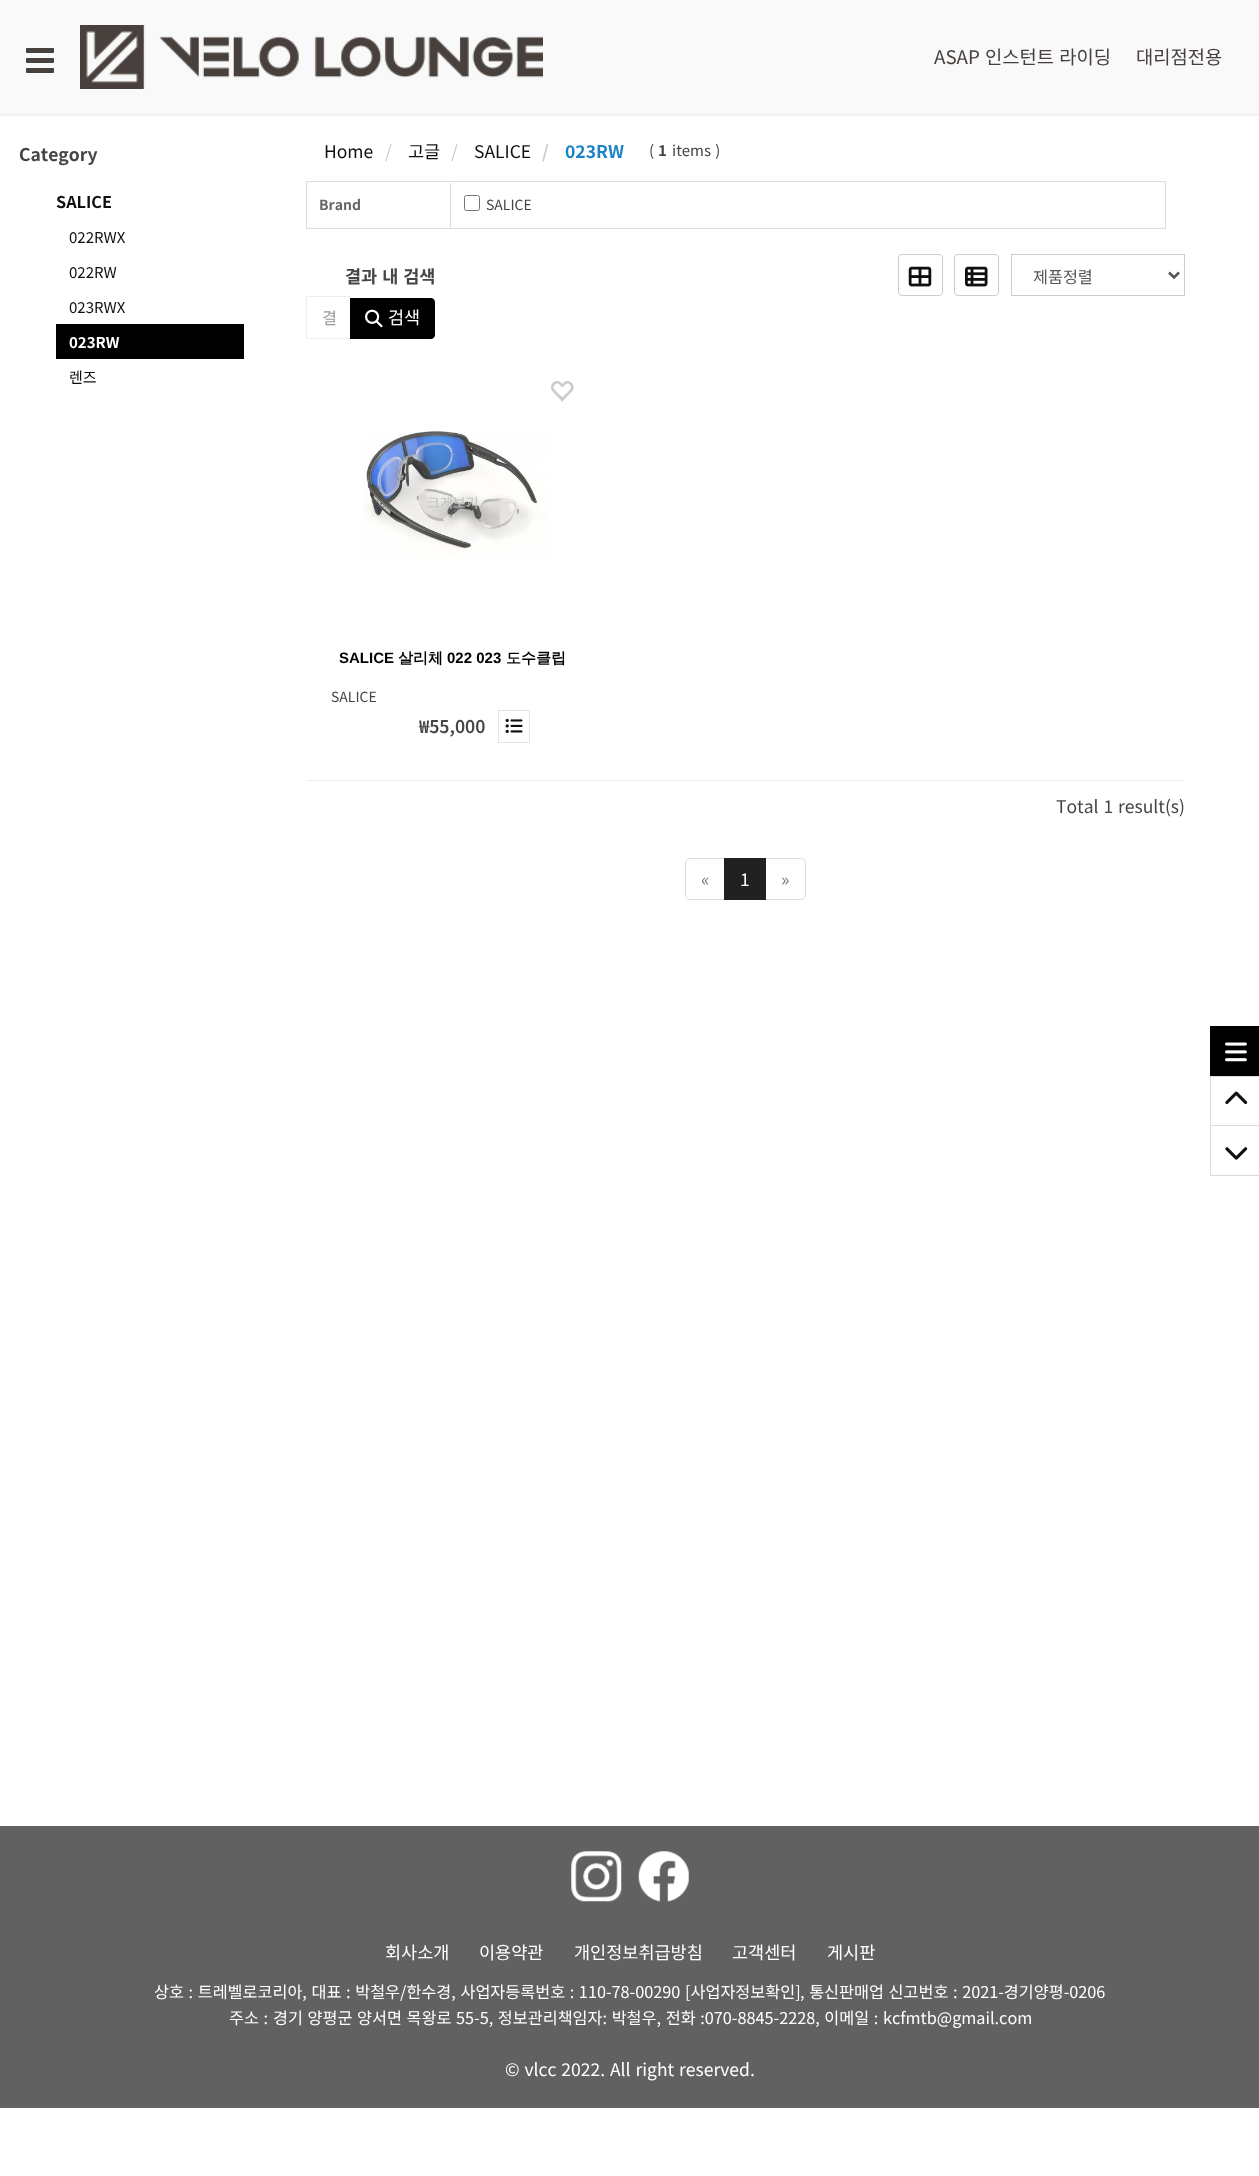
<svg xmlns="http://www.w3.org/2000/svg" width="1259" height="2176">
	<style>*{font-kerning:none!important;font-variant-ligatures:none!important}</style>
	<rect width="100%" height="100%" fill="#FFFFFF" />
	<rect x="0" y="113" width="1259" height="3" fill="#F2F2F2" />
	<rect x="0" y="0" width="1259" height="113" fill="#F9F9F9" />
	<rect x="26" y="48" width="28" height="5" rx="1" fill="#47403D" />
	<rect x="26" y="58" width="28" height="5" rx="1" fill="#47403D" />
	<rect x="26" y="68" width="28" height="5" rx="1" fill="#47403D" />
	<image x="80" y="25" width="463" height="64" href="assets/img1.png" />
	<g font-family="Noto Sans KR" font-size="18.75" fill="#47403D">
		<text x="934" y="64" word-spacing="1">ASAP 인스턴트 라이딩</text>
		<text x="1136" y="64">대리점전용</text>
	</g>
	<text x="19" y="161" font-family="Noto Sans KR" font-size="17.5" font-weight="700" fill="#454545">Category</text>
	<text x="56" y="208" font-family="Noto Sans KR" font-size="16.25" font-weight="700" fill="#101010">SALICE</text>
	<g font-family="Noto Sans KR" font-size="15" fill="#101010">
		<text x="69" y="243">022RWX</text>
		<text x="69" y="278">022RW</text>
		<text x="69" y="313">023RWX</text>
	</g>
	<rect x="56" y="324" width="188" height="35" fill="#000000" />
	<text x="69" y="348" font-family="Noto Sans KR" font-size="15" font-weight="700" fill="#FFFFFF">023RW</text>
	<text x="69" y="383" font-family="Noto Sans KR" font-size="15" fill="#101010">렌즈</text>
	<text x="324" y="158" font-family="Noto Sans KR" font-size="17.5" fill="#101010">Home</text>
	<text x="385" y="158" font-family="Noto Sans KR" font-size="17.5" fill="#CCCCCC">/</text>
	<text x="408" y="158" font-family="Noto Sans KR" font-size="17.5" fill="#101010">고글</text>
	<text x="451" y="158" font-family="Noto Sans KR" font-size="17.5" fill="#CCCCCC">/</text>
	<text x="474" y="158" font-family="Noto Sans KR" font-size="17.5" fill="#101010">SALICE</text>
	<text x="542" y="158" font-family="Noto Sans KR" font-size="17.5" font-weight="700" fill="#CCCCCC">/</text>
	<text x="565" y="158" font-family="Noto Sans KR" font-size="17.5" font-weight="700" fill="#1C84C6">023RW</text>
	<text x="649" y="156" font-family="Noto Sans KR" font-size="15" fill="#454545">(</text>
	<text x="658" y="156" font-family="Noto Sans KR" font-size="15" font-weight="700" fill="#454545">1</text>
	<text x="672" y="156" word-spacing="1" font-family="Noto Sans KR" font-size="15" fill="#454545">items )</text>
	<rect x="306.5" y="181.5" width="859" height="47" fill="none" stroke="#DDDDDD" />
	<text x="319" y="210" font-family="Noto Sans KR" font-size="14" font-weight="700" fill="#666666">Brand</text>
	<rect x="450" y="183" width="1" height="45" fill="#DDDDDD" />
	<rect x="464.5" y="195.5" width="15" height="15" rx="2" fill="none" stroke="#767676" />
	<text x="486" y="210" font-family="Noto Sans KR" font-size="14" fill="#454545">SALICE</text>
	<text x="345" y="283" word-spacing="1" font-family="Noto Sans KR" font-size="17.5" font-weight="700" fill="#454545">결과 내 검색</text>
	<rect x="306.5" y="296.5" width="44" height="42" fill="none" stroke="#EEEEEE" />
	<text x="322" y="324" word-spacing="1" font-family="Noto Sans KR" font-size="16.25" fill="#999999">결</text>
	<path d="M350 298H431C433 298 435 300 435 302V335C435 337 433 339 431 339H350Z" fill="#000000" />
	<image x="365" y="309" width="18" height="19" href="assets/img2.png" />
	<text x="388" y="324" font-family="Noto Sans KR" font-size="17.5" fill="#FFFFFF">검색</text>
	<rect x="898.5" y="254.5" width="44" height="41" rx="3.5" fill="none" stroke="#CCCCCC" />
	<image x="908" y="266" width="24" height="21" href="assets/img3.png" />
	<rect x="954.5" y="254.5" width="44" height="41" rx="3.5" fill="none" stroke="#CCCCCC" />
	<image x="965" y="266" width="23" height="21" href="assets/img4.png" />
	<rect x="1011.5" y="254.5" width="173" height="41" fill="none" stroke="#CCCCCC" />
	<path d="M1169 272.5L1174 277.5L1179 272.5" fill="none" stroke="#555555" stroke-width="2.5" />
	<text x="1033" y="283" font-family="Noto Sans KR" font-size="16.25" fill="#555555">제품정렬</text>
	<image x="550" y="381" width="24" height="21" href="assets/img5.png" />
	<image x="362" y="431" width="186" height="131" href="assets/img6.png" />
	<text x="427" y="508" font-family="Noto Sans KR" font-size="14" fill="#C4C3C0">크게보기</text>
	<text x="339" y="663" font-family="Liberation Sans" font-size="15" font-weight="700" fill="#000000">SALICE</text>
	<text x="398" y="663" font-family="WenQuanYi Zen Hei" font-size="15" font-weight="700" fill="#000000">살리체</text>
	<text x="447" y="663" font-family="Liberation Sans" font-size="15" font-weight="700" fill="#000000">022 023</text>
	<text x="506" y="663" font-family="WenQuanYi Zen Hei" font-size="15" font-weight="700" fill="#000000">도수클립</text>
	<text x="331" y="702" font-family="Noto Sans KR" font-size="14" fill="#454545">SALICE</text>
	<text x="419" y="733" font-family="Noto Sans KR" font-size="17.5" font-weight="600" fill="#454545">₩55,000</text>
	<rect x="498.5" y="710.5" width="31" height="32" fill="none" stroke="#E5E5E5" />
	<image x="505" y="718" width="18" height="15" href="assets/img7.png" />
	<rect x="306" y="780" width="879" height="1" fill="#EEEEEE" />
	<text x="1056" y="813" word-spacing="1" font-family="Noto Sans KR" font-size="17.5" fill="#454545">Total 1 result(s)</text>
	<path d="M690 858.5H724.5V899.5H690C687.5 899.5 685.5 897.5 685.5 895V863C685.5 860.5 687.5 858.5 690 858.5Z" fill="none" stroke="#DDDDDD" />
	<text x="701" y="886" font-family="Noto Sans KR" font-size="17.5" fill="#777777">«</text>
	<path d="M765.5 858.5H801C803.5 858.5 805.5 860.5 805.5 863V895C805.5 897.5 803.5 899.5 801 899.5H765.5Z" fill="none" stroke="#DDDDDD" />
	<rect x="724" y="858" width="42" height="42" fill="#212121" />
	<text x="740" y="886" font-family="Noto Sans KR" font-size="17.5" fill="#FFFFFF">1</text>
	<text x="781" y="886" font-family="Noto Sans KR" font-size="17.5" fill="#777777">»</text>
	<rect x="1210" y="1026" width="49" height="50" fill="#000000" />
	<image x="1225" y="1042" width="22" height="20" href="assets/img8.png" />
	<rect x="1210" y="1076" width="49" height="1" fill="#DDDDDD" />
	<rect x="1210" y="1125" width="49" height="1" fill="#DBDBDB" />
	<rect x="1210" y="1076" width="1" height="50" fill="#DBDBDB" />
	<image x="1225" y="1091" width="23" height="13" href="assets/img9.png" />
	<rect x="1210" y="1175" width="49" height="1" fill="#DBDBDB" />
	<rect x="1210" y="1126" width="1" height="50" fill="#DBDBDB" />
	<image x="1225" y="1147" width="23" height="13" href="assets/img10.png" />
	<rect x="0" y="1826" width="1259" height="282" fill="#616161" />
	<image x="571" y="1851" width="51" height="51" href="assets/img11.png" />
	<image x="638" y="1851" width="51" height="51" href="assets/img12.png" />
	<g font-family="Noto Sans KR" font-size="17.5" fill="#FFFFFF">
		<text x="385" y="1959">회사소개</text>
		<text x="479" y="1959">이용약관</text>
		<text x="574" y="1959">개인정보취급방침</text>
		<text x="732" y="1959">고객센터</text>
		<text x="827" y="1959">게시판</text>
	</g>
	<g font-family="Noto Sans KR" font-size="16.25" fill="#FFFFFF">
		<text x="154" y="1998" word-spacing="1">상호 : 트레벨로코리아, 대표 : 박철우/한수경, 사업자등록번호 : 110-78-00290</text>
		<text x="685" y="1998">[사업자정보확인]</text>
		<text x="800" y="1998" word-spacing="1">, 통신판매업 신고번호 : 2021-경기양평-0206</text>
		<text x="229" y="2024" word-spacing="1">주소 :</text>
		<text x="273" y="2024" word-spacing="1">경기 양평군 양서면 목왕로 55-5, 정보관리책임자: 박철우, 전화 :070-8845-2228, 이메일 : kcfmtb@gmail.com</text>
	</g>
	<text x="505" y="2076" word-spacing="1" font-family="Noto Sans KR" font-size="17.5" fill="#FFFFFF">© vlcc 2022. All right reserved.</text>
</svg>
